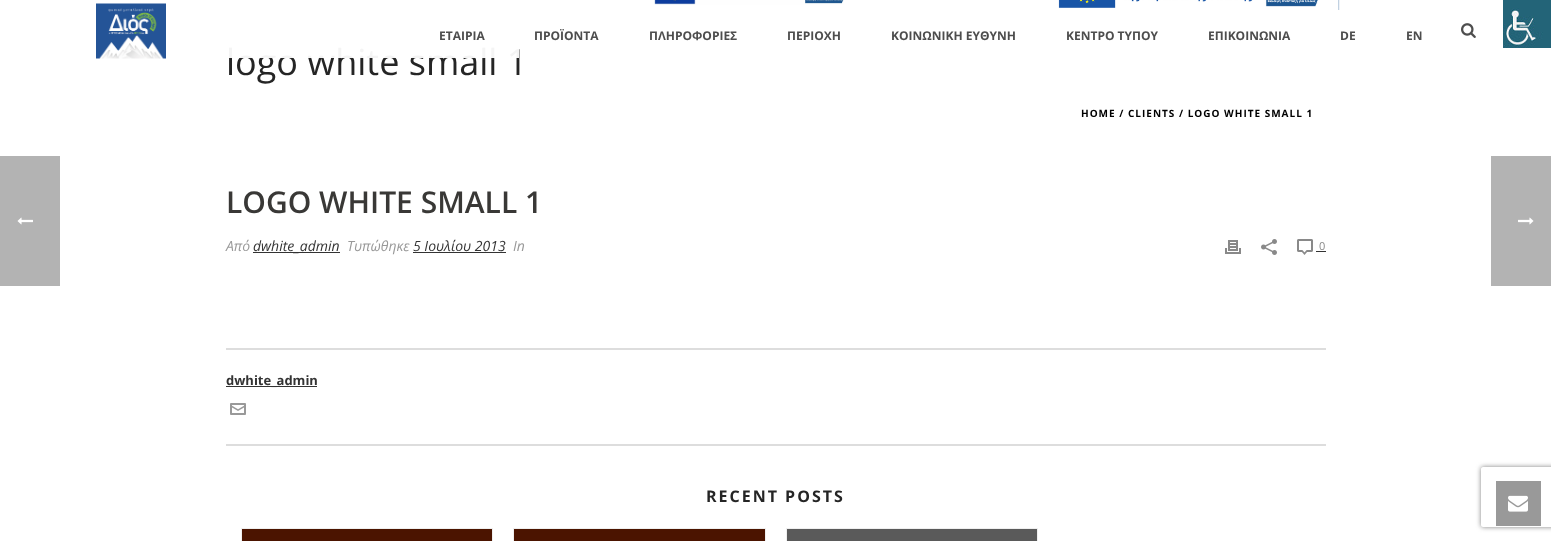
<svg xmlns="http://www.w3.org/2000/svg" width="1551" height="541">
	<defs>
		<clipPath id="clip1"><path d="M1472 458H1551V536H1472ZM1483 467H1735C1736 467 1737 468 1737 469V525C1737 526 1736 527 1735 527H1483C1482 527 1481 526 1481 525V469C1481 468 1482 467 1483 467Z" clip-rule="evenodd" /></clipPath>
	</defs>
	<rect width="100%" height="100%" fill="#FFFFFF" />
	<rect x="0" y="156" width="60" height="130" fill="#B3B3B3" />
	<image x="17" y="217" width="16" height="8" href="assets/img1.png" />
	<text x="226" y="75" font-family="Open Sans" font-size="36" fill="#252525">logo white small 1</text>
	<rect x="228" y="47" width="291" height="11" fill="#FFFFFF" fill-opacity="0.95" />
	<image x="654" y="0" width="190" height="5" href="assets/img2.png" />
	<image x="1058" y="0" width="282" height="10" href="assets/img3.png" />
	<image x="96" y="3" width="70" height="56" href="assets/img4.png" />
	<g font-family="Open Sans" font-size="12" font-weight="700" fill="#4D4D4D">
		<text x="439" y="40">ΕΤΑΙΡΙΑ</text>
		<text x="534" y="40">ΠΡΟΪΟΝΤΑ</text>
		<text x="649" y="40">ΠΛΗΡΟΦΟΡΙΕΣ</text>
		<text x="787" y="40">ΠΕΡΙΟΧΗ</text>
		<text x="891" y="40">ΚΟΙΝΩΝΙΚΗ ΕΥΘΥΝΗ</text>
		<text x="1066" y="40">ΚΕΝΤΡΟ ΤΥΠΟΥ</text>
		<text x="1208" y="40">ΕΠΙΚΟΙΝΩΝΙΑ</text>
		<text x="1340" y="40">DE</text>
		<text x="1406" y="40">EN</text>
	</g>
	<image x="1461" y="23" width="15" height="15" href="assets/img5.png" />
	<text x="1081" y="117" font-family="Open Sans" font-size="10" font-weight="700" letter-spacing="1" fill="#000000">HOME / CLIENTS / LOGO WHITE SMALL 1</text>
	<text x="226" y="213" font-family="Open Sans" font-size="30" font-weight="600" fill="#393836">LOGO WHITE SMALL 1</text>
	<text x="226" y="251" font-family="Open Sans" font-size="14" font-style="italic" fill="#999999">Από</text>
	<rect x="253" y="252" width="87" height="1" fill="#333333" />
	<text x="253" y="251" font-family="Open Sans" font-size="14" font-style="italic" fill="#333333">dwhite_admin</text>
	<text x="347" y="251" font-family="Open Sans" font-size="14" font-style="italic" fill="#999999">Τυπώθηκε</text>
	<text x="413" y="251" font-family="Open Sans" font-size="14" font-style="italic" fill="#333333">5 Ιουλίου 2013</text>
	<rect x="413" y="252" width="93" height="1" fill="#333333" />
	<text x="513" y="251" font-family="Open Sans" font-size="14" font-style="italic" fill="#999999">In</text>
	<image x="1225" y="240" width="16" height="14" href="assets/img6.png" />
	<image x="1261" y="239" width="16" height="16" href="assets/img7.png" />
	<image x="1297" y="239" width="16" height="16" href="assets/img8.png" />
	<text x="1319" y="250" font-family="Open Sans" font-size="11" fill="#898989">0</text>
	<rect x="1316" y="251" width="10" height="1" fill="#333333" />
	<rect x="226" y="348" width="1100" height="2" fill="#DDDDDD" />
	<rect x="226" y="444" width="1100" height="2" fill="#DDDDDD" />
	<rect x="226" y="386" width="91" height="1" fill="#333333" />
	<text x="226" y="385" font-family="Open Sans" font-size="13" font-weight="700" fill="#333333">dwhite_admin</text>
	<image x="230" y="403" width="16" height="12" href="assets/img9.png" />
	<text x="706" y="502" font-family="Open Sans" font-size="16" font-weight="700" letter-spacing="2" fill="#252525">RECENT POSTS</text>
	<rect x="241.5" y="528.5" width="251" height="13" fill="none" stroke="#EFEFEF" />
	<rect x="242" y="529" width="250" height="12" fill="#4B1400" />
	<rect x="513.5" y="528.5" width="252" height="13" fill="none" stroke="#EFEFEF" />
	<rect x="514" y="529" width="251" height="12" fill="#4B1400" />
	<rect x="786.5" y="528.5" width="251" height="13" fill="none" stroke="#EFEFEF" />
	<rect x="787" y="529" width="250" height="12" fill="#5A5A5A" />
	<rect x="1491" y="156" width="60" height="130" fill="#B3B3B3" />
	<image x="1518" y="217" width="16" height="8" href="assets/img10.png" />
	<g clip-path="url(#clip1)">
		<rect x="1481" y="467" width="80" height="60" rx="2" fill="#808080" filter="blur(2.5px)" />
	</g>
	<rect x="1496" y="481" width="45" height="45" fill="#999999" />
	<image x="1508" y="495" width="20" height="17" href="assets/img11.png" />
	<image x="1503" y="0" width="48" height="48" href="assets/img12.png" />
</svg>
